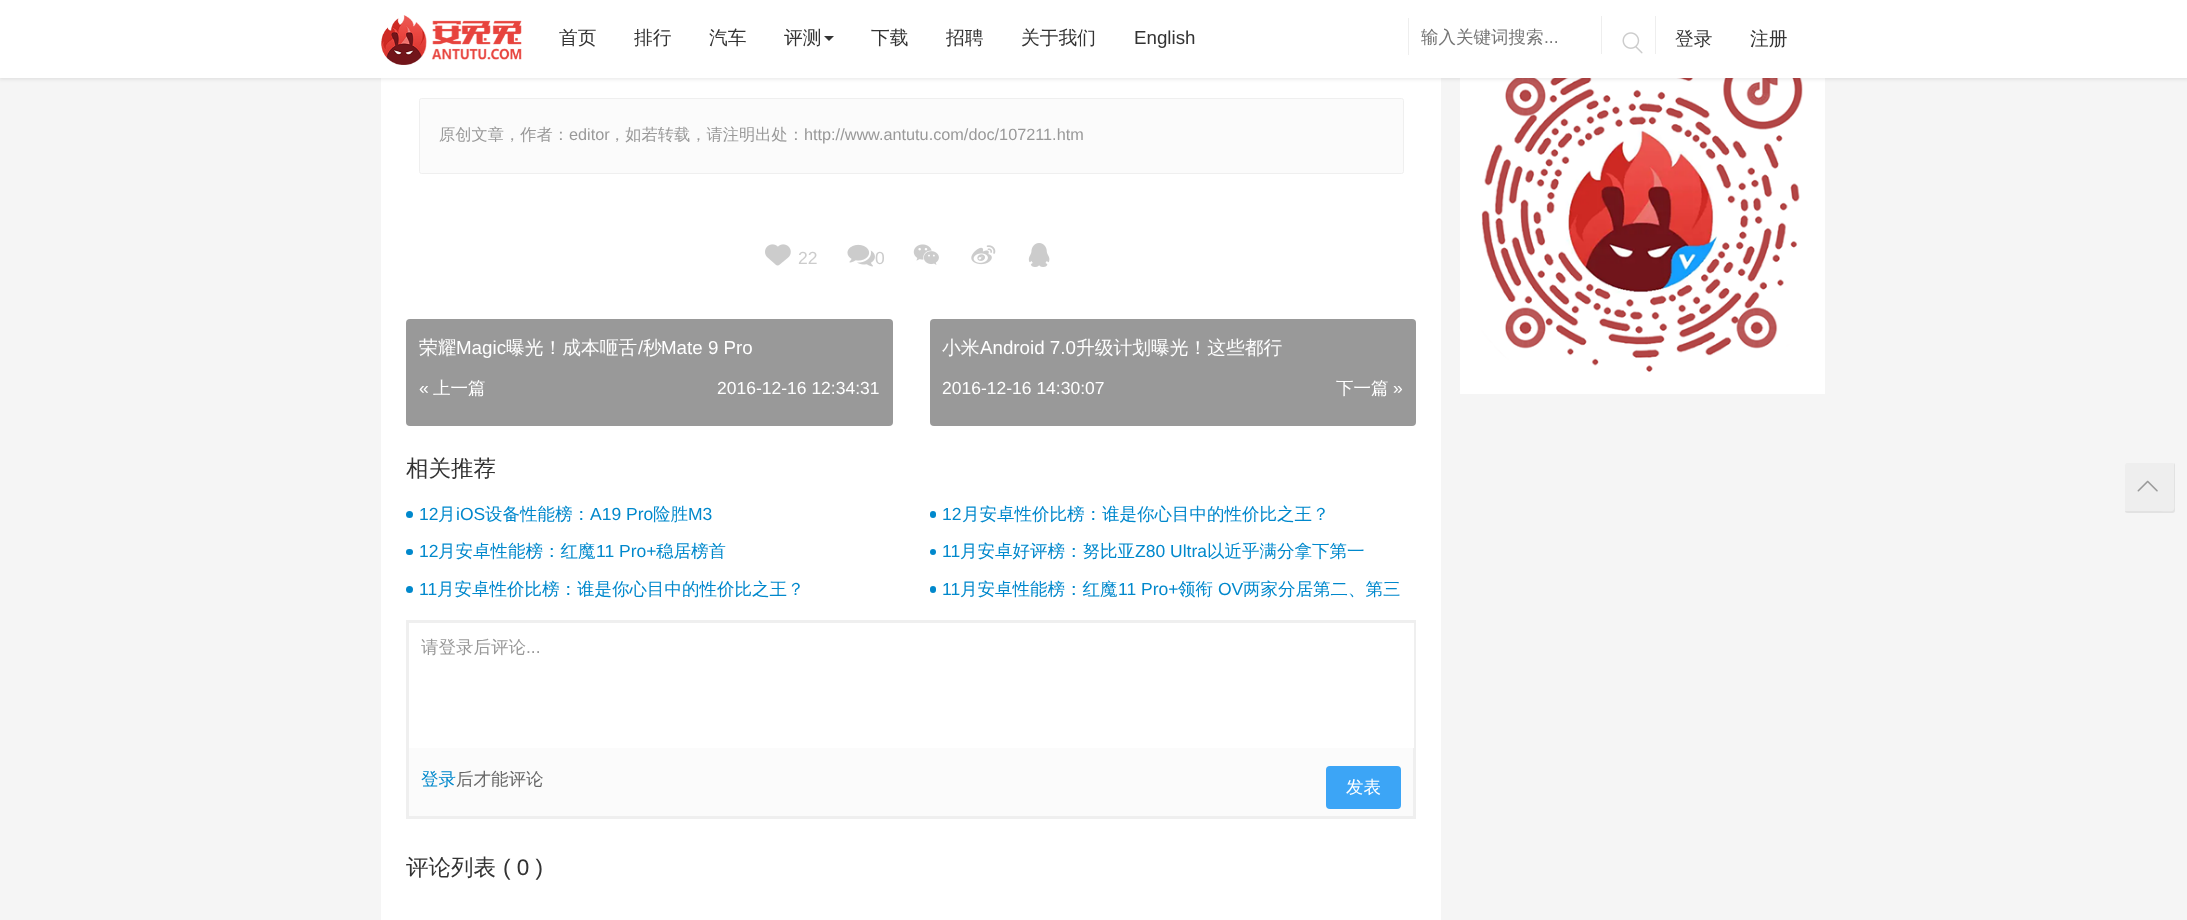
<svg xmlns="http://www.w3.org/2000/svg" width="2187" height="920">
	<rect width="100%" height="100%" fill="#F5F5F5" />
	<rect x="381" y="78" width="1060" height="842" fill="#FFFFFF" />
	<rect x="1460" y="78" width="365" height="316" fill="#FFFFFF" />
	<image x="1481" y="78" width="322" height="294" href="assets/img8.png" />
	<rect x="-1" y="-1" width="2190" height="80" fill="#000000" fill-opacity="0.1" filter="blur(2px)" />
	<rect x="0" y="0" width="2187" height="78" fill="#FFFFFF" />
	<image x="381" y="15" width="141" height="50" href="assets/img1.png" />
	<g font-family="WenQuanYi Zen Hei" font-size="18.75" font-weight="500" fill="#333333">
		<text x="559" y="44">首页</text>
		<text x="634" y="44">排行</text>
		<text x="709" y="44">汽车</text>
		<text x="784" y="44">评测</text>
	</g>
	<path d="M824 36H834L829 41Z" fill="#333333" />
	<g font-family="WenQuanYi Zen Hei" font-size="18.75" font-weight="500" fill="#333333">
		<text x="871" y="44">下载</text>
		<text x="946" y="44">招聘</text>
		<text x="1021" y="44">关于我们</text>
	</g>
	<text x="1134" y="44" font-family="Liberation Sans" font-size="18.75" fill="#333333">English</text>
	<rect x="1408" y="18" width="1" height="37" fill="#EEEEEE" />
	<text x="1421" y="43" font-family="WenQuanYi Zen Hei" font-size="17.5" font-weight="500" fill="#757575">输入关键词搜索</text>
	<text x="1544" y="43" font-family="Liberation Sans" font-size="17.5" fill="#757575">...</text>
	<rect x="1655" y="16" width="1" height="38" fill="#EEEEEE" />
	<rect x="1601" y="16" width="1" height="38" fill="#EEEEEE" />
	<image x="1622" y="32" width="21" height="22" href="assets/img2.png" />
	<g font-family="WenQuanYi Zen Hei" font-size="18.75" font-weight="500" fill="#333333">
		<text x="1675" y="45">登录</text>
		<text x="1750" y="45">注册</text>
	</g>
	<rect x="419.5" y="98.5" width="984" height="75" rx="2" fill="#FBFBFB" stroke="#EFEFEF" />
	<text x="439" y="140" font-family="WenQuanYi Zen Hei" font-size="16.25" font-weight="500" fill="#999999">原创文章，作者：</text>
	<text x="569" y="140" font-family="Liberation Sans" font-size="16.25" fill="#999999">editor</text>
	<text x="609" y="140" font-family="WenQuanYi Zen Hei" font-size="16.25" font-weight="500" fill="#999999">，如若转载，请注明出处：</text>
	<text x="804" y="140" font-family="Liberation Sans" font-size="16.25" fill="#999999">http://www.antutu.com/doc/107211.htm</text>
	<image x="765" y="244" width="26" height="22" href="assets/img3.png" />
	<text x="798" y="264" font-family="Liberation Sans" font-size="17.5" fill="#CCCCCC">22</text>
	<image x="847" y="244" width="28" height="23" href="assets/img4.png" />
	<text x="875" y="264" font-family="Liberation Sans" font-size="17.5" fill="#CCCCCC">0</text>
	<image x="913" y="244" width="26" height="21" href="assets/img5.png" />
	<image x="971" y="245" width="25" height="20" href="assets/img6.png" />
	<image x="1028" y="243" width="22" height="24" href="assets/img7.png" />
	<rect x="406" y="319" width="487" height="107" rx="4" fill="#999999" />
	<text x="419" y="354" font-family="WenQuanYi Zen Hei" font-size="18.75" font-weight="500" fill="#FFFFFF">荣耀</text>
	<text x="456" y="354" font-family="Liberation Sans" font-size="18.75" fill="#FFFFFF">Magic</text>
	<text x="506" y="354" font-family="WenQuanYi Zen Hei" font-size="18.75" font-weight="500" fill="#FFFFFF">曝光！成本咂舌</text>
	<text x="638" y="354" font-family="Liberation Sans" font-size="18.75" fill="#FFFFFF">/</text>
	<text x="643" y="354" font-family="WenQuanYi Zen Hei" font-size="18.75" font-weight="500" fill="#FFFFFF">秒</text>
	<text x="661" y="354" font-family="Liberation Sans" font-size="18.75" fill="#FFFFFF">Mate 9 Pro</text>
	<text x="419" y="394" font-family="Liberation Sans" font-size="17.5" fill="#FFFFFF">«</text>
	<text x="433" y="394" font-family="WenQuanYi Zen Hei" font-size="17.5" font-weight="500" fill="#FFFFFF">上一篇</text>
	<text x="717" y="394" font-family="Liberation Sans" font-size="17.5" fill="#FFFFFF">2016-12-16 12:34:31</text>
	<rect x="930" y="319" width="486" height="107" rx="4" fill="#999999" />
	<text x="942" y="354" font-family="WenQuanYi Zen Hei" font-size="18.75" font-weight="500" fill="#FFFFFF">小米</text>
	<text x="980" y="354" font-family="Liberation Sans" font-size="18.75" fill="#FFFFFF">Android 7.0</text>
	<text x="1076" y="354" font-family="WenQuanYi Zen Hei" font-size="18.75" font-weight="500" fill="#FFFFFF">升级计划曝光！这些都行</text>
	<text x="942" y="394" font-family="Liberation Sans" font-size="17.5" fill="#FFFFFF">2016-12-16 14:30:07</text>
	<text x="1336" y="394" font-family="WenQuanYi Zen Hei" font-size="17.5" font-weight="500" fill="#FFFFFF">下一篇</text>
	<text x="1393" y="394" font-family="Liberation Sans" font-size="17.5" fill="#FFFFFF">»</text>
	<text x="406" y="476" font-family="WenQuanYi Zen Hei" font-size="22.5" font-weight="500" fill="#333333">相关推荐</text>
	<circle cx="409.5" cy="514.5" r="3.5" fill="#0088CC" />
	<text x="419" y="520" font-family="Liberation Sans" font-size="17.5" fill="#0088CC">12</text>
	<text x="438" y="520" font-family="WenQuanYi Zen Hei" font-size="17.5" font-weight="500" fill="#0088CC">月</text>
	<text x="456" y="520" font-family="Liberation Sans" font-size="17.5" fill="#0088CC">iOS</text>
	<text x="485" y="520" font-family="WenQuanYi Zen Hei" font-size="17.5" font-weight="500" fill="#0088CC">设备性能榜：</text>
	<text x="590" y="520" font-family="Liberation Sans" font-size="17.5" fill="#0088CC">A19 Pro</text>
	<text x="653" y="520" font-family="WenQuanYi Zen Hei" font-size="17.5" font-weight="500" fill="#0088CC">险胜</text>
	<text x="688" y="520" font-family="Liberation Sans" font-size="17.5" fill="#0088CC">M3</text>
	<rect x="930" y="511" width="6" height="7" rx="3" fill="#0088CC" />
	<text x="942" y="520" font-family="Liberation Sans" font-size="17.5" fill="#0088CC">12</text>
	<text x="962" y="520" font-family="WenQuanYi Zen Hei" font-size="17.5" font-weight="500" fill="#0088CC">月安卓性价比榜：谁是你心目中的性价比之王？</text>
	<rect x="406" y="549" width="7" height="6" rx="3" fill="#0088CC" />
	<text x="419" y="557" font-family="Liberation Sans" font-size="17.5" fill="#0088CC">12</text>
	<text x="438" y="557" font-family="WenQuanYi Zen Hei" font-size="17.5" font-weight="500" fill="#0088CC">月安卓性能榜：红魔</text>
	<text x="596" y="557" font-family="Liberation Sans" font-size="17.5" fill="#0088CC">11 Pro+</text>
	<text x="656" y="557" font-family="WenQuanYi Zen Hei" font-size="17.5" font-weight="500" fill="#0088CC">稳居榜首</text>
	<circle cx="933" cy="552" r="3" fill="#0088CC" />
	<text x="942" y="557" font-family="Liberation Sans" font-size="17.5" fill="#0088CC">11</text>
	<text x="960" y="557" font-family="WenQuanYi Zen Hei" font-size="17.5" font-weight="500" fill="#0088CC">月安卓好评榜：努比亚</text>
	<text x="1135" y="557" font-family="Liberation Sans" font-size="17.5" fill="#0088CC">Z80 Ultra</text>
	<text x="1207" y="557" font-family="WenQuanYi Zen Hei" font-size="17.5" font-weight="500" fill="#0088CC">以近乎满分拿下第一</text>
	<circle cx="409.5" cy="589.5" r="3.5" fill="#0088CC" />
	<text x="419" y="595" font-family="Liberation Sans" font-size="17.5" fill="#0088CC">11</text>
	<text x="437" y="595" font-family="WenQuanYi Zen Hei" font-size="17.5" font-weight="500" fill="#0088CC">月安卓性价比榜：谁是你心目中的性价比之王？</text>
	<rect x="930" y="586" width="6" height="7" rx="3" fill="#0088CC" />
	<text x="942" y="595" font-family="Liberation Sans" font-size="17.5" fill="#0088CC">11</text>
	<text x="960" y="595" font-family="WenQuanYi Zen Hei" font-size="17.5" font-weight="500" fill="#0088CC">月安卓性能榜：红魔</text>
	<text x="1118" y="595" font-family="Liberation Sans" font-size="17.5" fill="#0088CC">11 Pro+</text>
	<text x="1178" y="595" font-family="WenQuanYi Zen Hei" font-size="17.5" font-weight="500" fill="#0088CC">领衔</text>
	<text x="1218" y="595" font-family="Liberation Sans" font-size="17.5" fill="#0088CC">OV</text>
	<text x="1243" y="595" font-family="WenQuanYi Zen Hei" font-size="17.5" font-weight="500" fill="#0088CC">两家分居第二、第三</text>
	<rect x="409" y="748" width="1004" height="68" fill="#FBFBFB" />
	<rect x="407.5" y="621.5" width="1007" height="196" fill="none" stroke="#EFEFEF" stroke-width="3" />
	<rect x="1413" y="623" width="1" height="125" fill="#FFFFFF" />
	<text x="421" y="653" font-family="WenQuanYi Zen Hei" font-size="17.5" font-weight="500" fill="#999999">请登录后评论</text>
	<text x="526" y="653" font-family="Liberation Sans" font-size="17.5" fill="#999999">...</text>
	<text x="421" y="785" font-family="WenQuanYi Zen Hei" font-size="17.5" font-weight="500" fill="#0088CC">登录</text>
	<text x="456" y="785" font-family="WenQuanYi Zen Hei" font-size="17.5" font-weight="500" fill="#666666">后才能评论</text>
	<rect x="1326" y="766" width="75" height="43" rx="4" fill="#3CA5F6" />
	<text x="1346" y="793" font-family="WenQuanYi Zen Hei" font-size="17.5" font-weight="500" fill="#FFFFFF">发表</text>
	<text x="406" y="875" font-family="WenQuanYi Zen Hei" font-size="22.5" font-weight="500" fill="#333333">评论列表</text>
	<text x="503" y="875" font-family="Liberation Sans" font-size="22.5" fill="#333333">( 0 )</text>
	<rect x="2125" y="463" width="50" height="50" rx="2.5" fill="#EEEEEE" />
	<path d="M2125 511C2125 512 2126 513 2128 513H2172C2174 513 2175 512 2175 510V466C2175 465 2175 464 2174 463V494C2174 515 2178 511 2156 511Z" fill="#E2E2E2" />
	<image x="2137" y="480" width="21" height="12" href="assets/img9.png" />
</svg>
